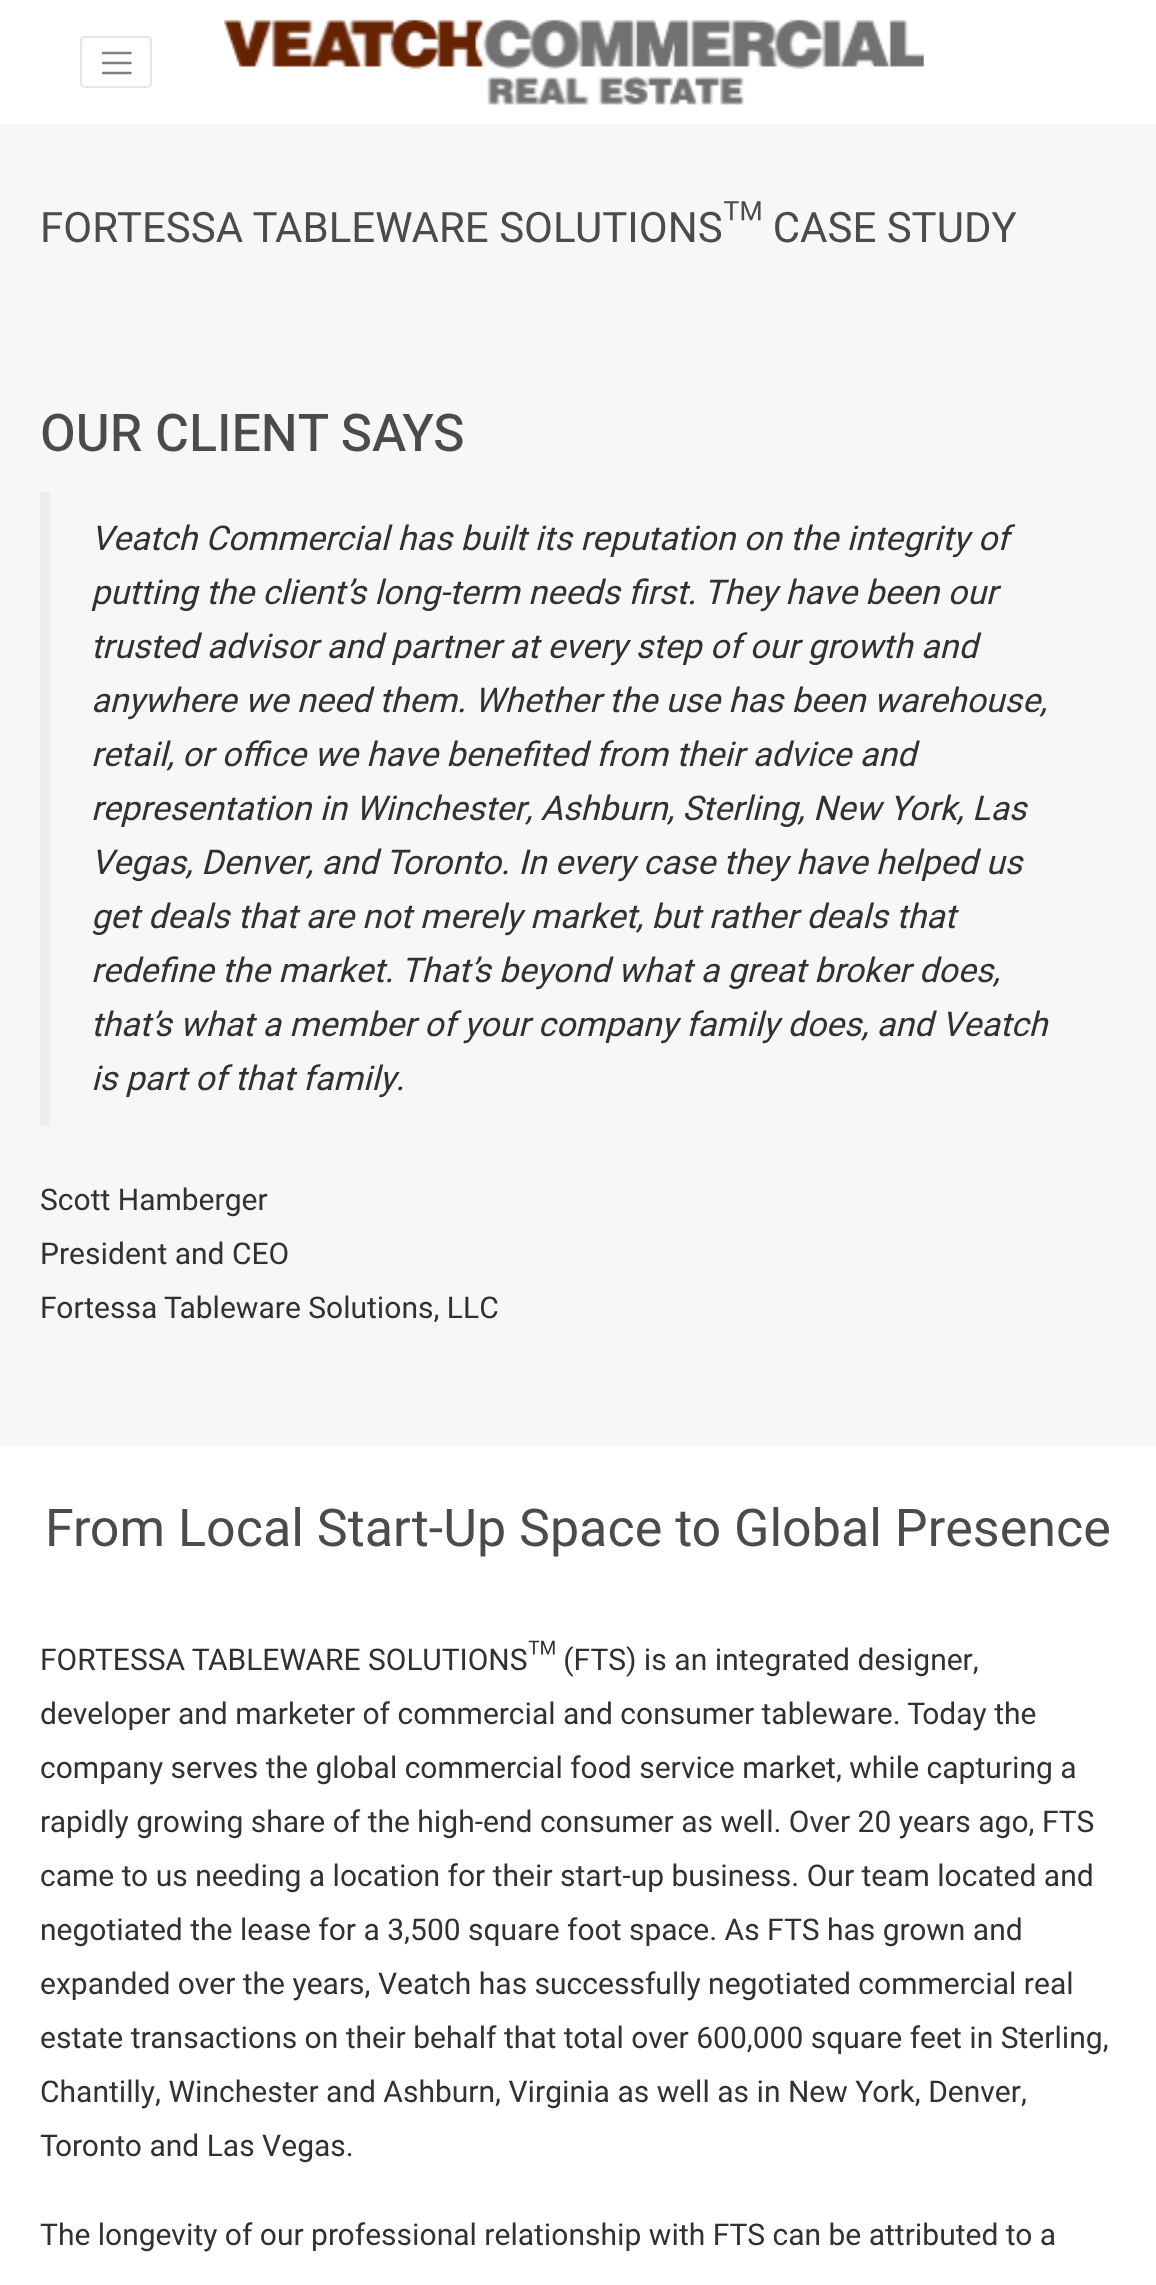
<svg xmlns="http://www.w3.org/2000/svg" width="1156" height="2285">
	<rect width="100%" height="100%" fill="#F7F7F7" />
	<rect x="0" y="0" width="1156" height="124" fill="#FFFFFF" />
	<rect x="81" y="37" width="70" height="50" rx="4" fill="none" stroke="#E6E6E6" stroke-width="2" />
	<path d="M103 53H130.5M103 63H130.5M103 73H130.5" fill="none" stroke="#808080" stroke-width="2.5" stroke-linecap="round" />
	<image x="224" y="19" width="700" height="86" href="assets/img1.png" />
	<rect x="0" y="1446" width="1156" height="839" fill="#FFFFFF" />
	<text x="40" y="242" font-family="Heebo" font-size="42" fill="#494B4D">FORTESSA TABLEWARE SOLUTIONS™ CASE STUDY</text>
	<text x="40" y="451" font-family="Heebo" font-size="52" font-weight="500" fill="#494B4D">OUR CLIENT SAYS</text>
	<rect x="40" y="492" width="10" height="634" fill="#EEEEEE" />
	<g font-family="Heebo" font-size="34" font-style="italic" fill="#2F3133">
		<text x="91" y="550">Veatch Commercial has built its reputation on the integrity of</text>
		<text x="91" y="604">putting the client’s long-term needs first. They have been our</text>
		<text x="91" y="658">trusted advisor and partner at every step of our growth and</text>
		<text x="91" y="712">anywhere we need them. Whether the use has been warehouse,</text>
		<text x="91" y="766">retail, or office we have benefited from their advice and</text>
		<text x="91" y="820">representation in Winchester, Ashburn, Sterling, New York, Las</text>
		<text x="91" y="874">Vegas, Denver, and Toronto. In every case they have helped us</text>
		<text x="91" y="928">get deals that are not merely market, but rather deals that</text>
		<text x="91" y="982">redefine the market. That’s beyond what a great broker does,</text>
		<text x="91" y="1036">that’s what a member of your company family does, and Veatch</text>
		<text x="91" y="1090">is part of that family.</text>
	</g>
	<g font-family="Heebo" font-size="30" fill="#2F3133">
		<text x="40" y="1210">Scott Hamberger</text>
		<text x="40" y="1264">President and CEO</text>
		<text x="40" y="1318">Fortessa Tableware Solutions, LLC</text>
	</g>
	<text x="45" y="1546" font-family="Heebo" font-size="52" fill="#494B4D">From Local Start-Up Space to Global Presence</text>
	<g font-family="Heebo" font-size="30" fill="#2F3133">
		<text x="40" y="1670">FORTESSA TABLEWARE SOLUTIONS™ (FTS) is an integrated designer,</text>
		<text x="40" y="1724">developer and marketer of commercial and consumer tableware. Today the</text>
		<text x="40" y="1778">company serves the global commercial food service market, while capturing a</text>
		<text x="40" y="1832">rapidly growing share of the high-end consumer as well. Over 20 years ago, FTS</text>
		<text x="40" y="1886">came to us needing a location for their start-up business. Our team located and</text>
		<text x="40" y="1940">negotiated the lease for a 3,500 square foot space. As FTS has grown and</text>
		<text x="40" y="1994">expanded over the years, Veatch has successfully negotiated commercial real</text>
		<text x="40" y="2048">estate transactions on their behalf that total over 600,000 square feet in Sterling,</text>
		<text x="40" y="2102">Chantilly, Winchester and Ashburn, Virginia as well as in New York, Denver,</text>
		<text x="40" y="2156">Toronto and Las Vegas.</text>
		<text x="40" y="2245">The longevity of our professional relationship with FTS can be attributed to a</text>
	</g>
</svg>
